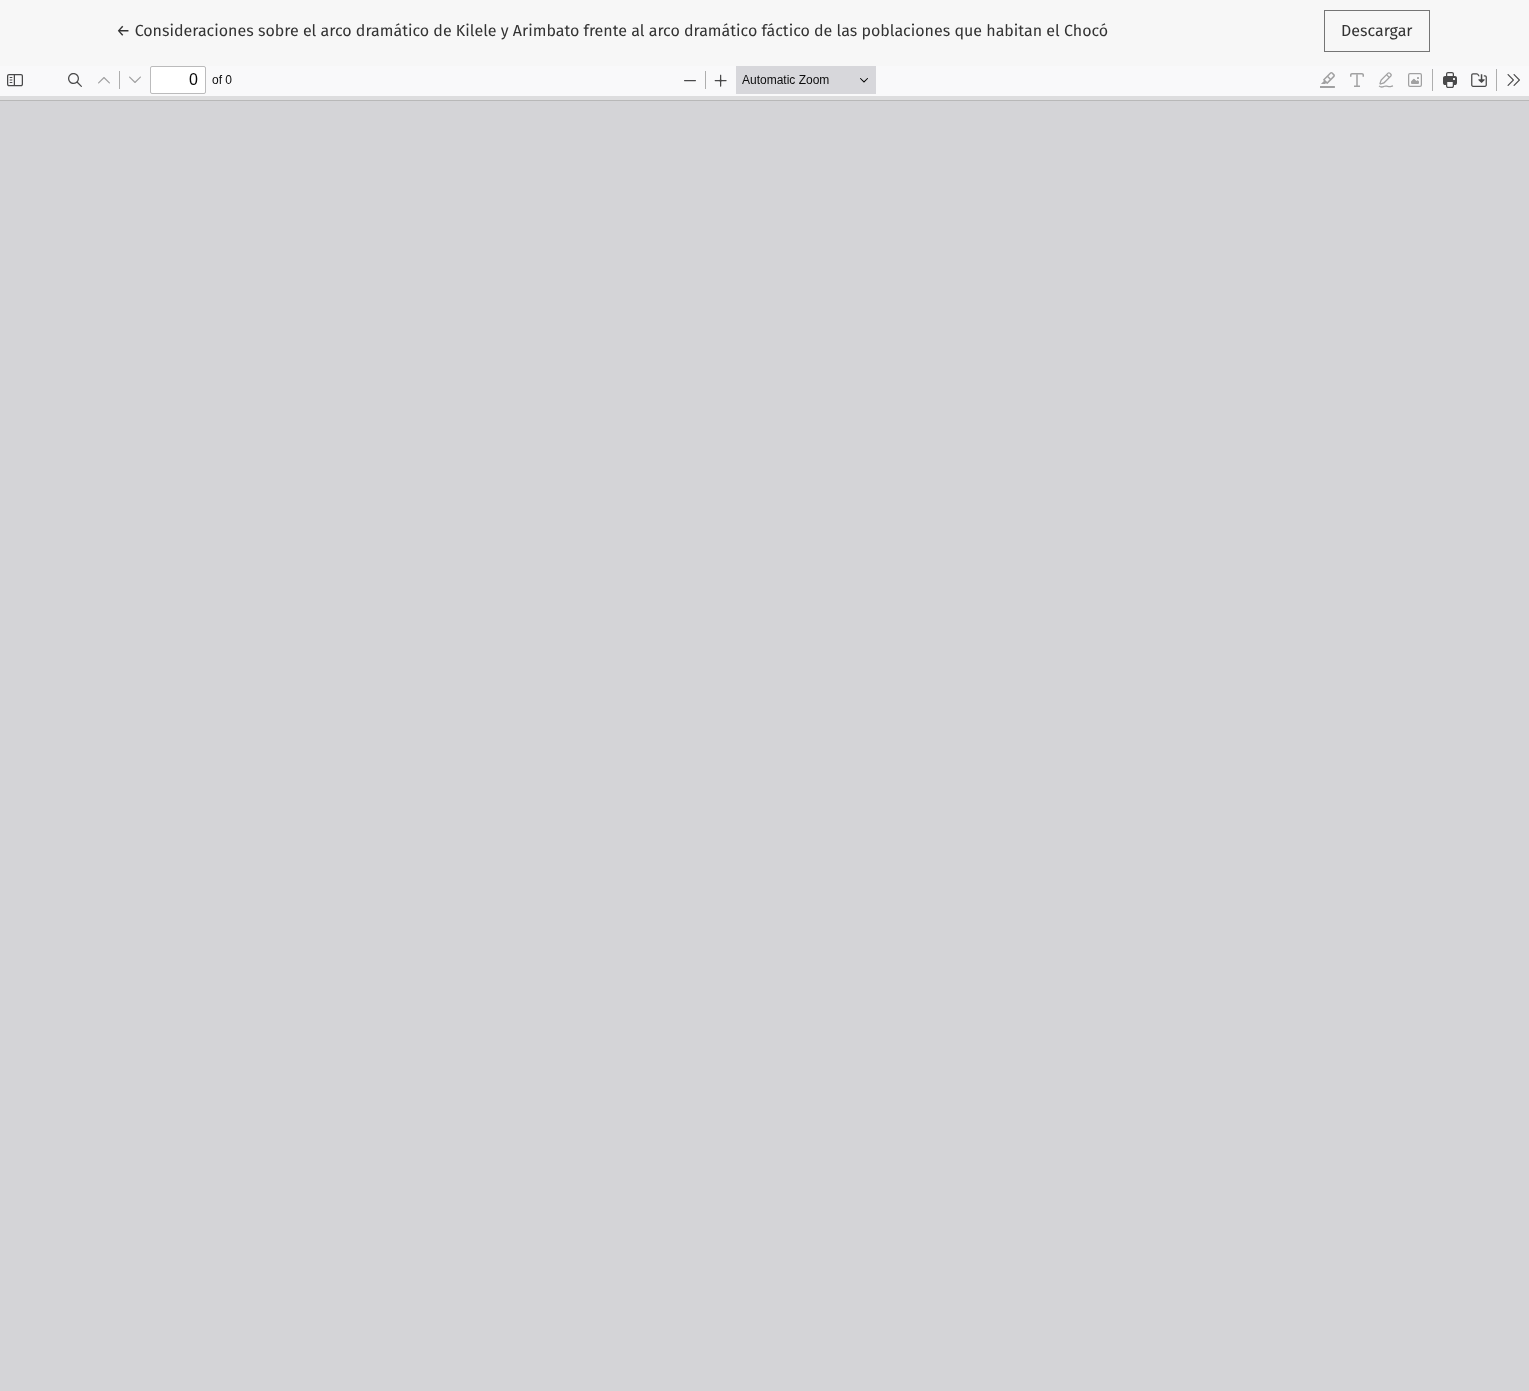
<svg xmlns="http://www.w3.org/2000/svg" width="1529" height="1391">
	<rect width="100%" height="100%" fill="#F7F7F7" />
	<text x="116" y="36" font-family="Fira Sans" font-size="16" fill="#333333">← Consideraciones sobre el arco dramático de Kilele y Arimbato frente al arco dramático fáctico de las poblaciones que habitan el Chocó</text>
	<rect x="1324.5" y="10.5" width="105" height="41" fill="none" stroke="#757575" />
	<text x="1341" y="36" font-family="Fira Sans" font-size="16" fill="#333333">Descargar</text>
	<image x="0" y="66" width="1529" height="1325" href="assets/img1.png" />
</svg>
